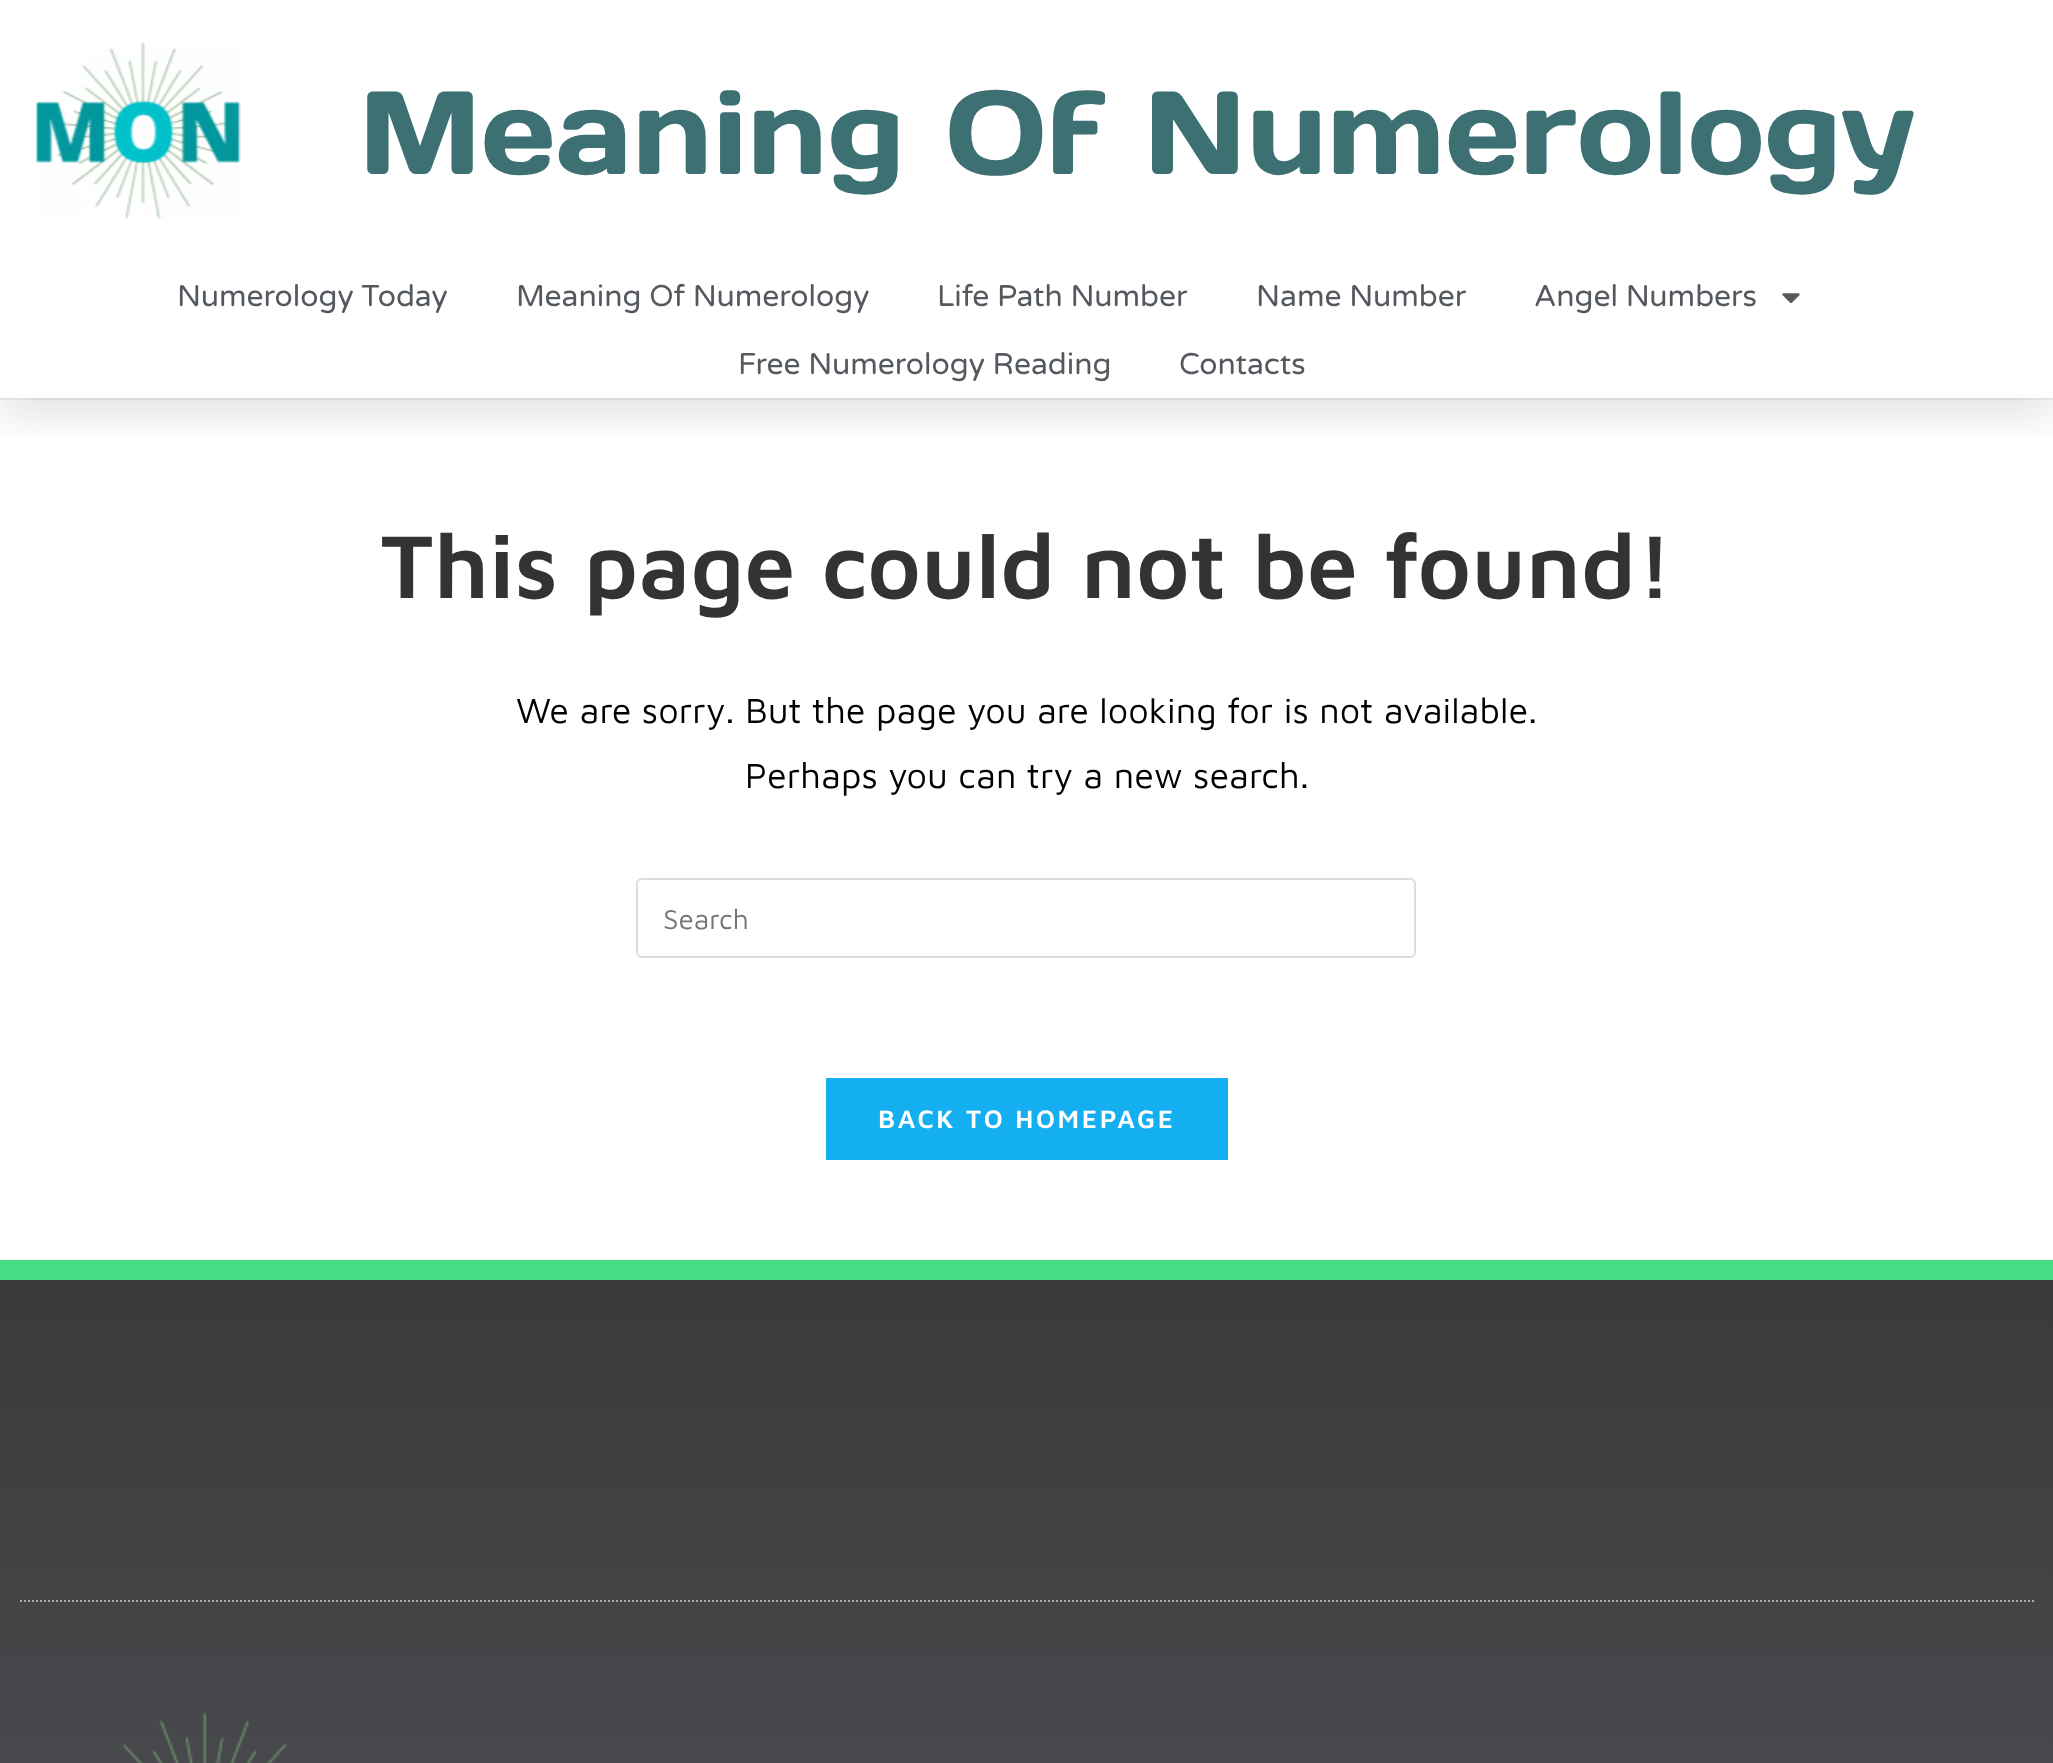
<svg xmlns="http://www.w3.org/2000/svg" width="2053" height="1763">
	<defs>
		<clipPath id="clip1"><rect x="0" y="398" width="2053" height="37" /></clipPath>
		<linearGradient id="g1" gradientUnits="userSpaceOnUse" x1="1027" y1="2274" x2="1027" y2="1280"><stop offset="0" stop-color="#575860" /><stop offset="1" stop-color="#3A3A3A" /></linearGradient>
	</defs>
	<rect width="100%" height="100%" fill="#FFFFFF" />
	<rect x="0" y="398" width="2053" height="2" fill="#F1F1F1" />
	<g clip-path="url(#clip1)">
		<rect x="0" y="20" width="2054" height="398" fill="#000000" fill-opacity="0.1" filter="blur(20px)" />
	</g>
	<image x="36" y="42" width="205" height="177" href="assets/img1.png" />
	<text x="359" y="174" font-family="Days One" font-size="118" fill="#3C7073">Meaning Of Numerology</text>
	<g font-family="Varela Round" font-size="30" fill="#54595F">
		<text x="177" y="306">Numerology Today</text>
		<text x="516" y="306">Meaning Of Numerology</text>
		<text x="937" y="306">Life Path Number</text>
		<text x="1256" y="306">Name Number</text>
		<text x="1534" y="306">Angel Numbers</text>
	</g>
	<image x="1782" y="293" width="18" height="11" href="assets/img2.png" />
	<g font-family="Varela Round" font-size="30" fill="#54595F">
		<text x="738" y="374">Free Numerology Reading</text>
		<text x="1179" y="374">Contacts</text>
	</g>
	<text x="380" y="598" font-family="Maven Pro" font-size="92" font-weight="600" fill="#333333">This page could not be found!</text>
	<g font-family="Maven Pro" font-size="36" fill="#000000">
		<text x="516" y="723">We are sorry. But the page you are looking for is not available.</text>
		<text x="745" y="788">Perhaps you can try a new search.</text>
	</g>
	<rect x="637" y="879" width="778" height="78" rx="5" fill="none" stroke="#DDDDDD" stroke-width="2" />
	<text x="663" y="929" font-family="Maven Pro" font-size="28" fill="#757575">Search</text>
	<rect x="826" y="1078" width="402" height="82" fill="#13AFF0" />
	<text x="878" y="1128" font-family="Maven Pro" font-size="26" font-weight="600" letter-spacing="2.6" fill="#FFFFFF">BACK TO HOMEPAGE</text>
	<rect x="0" y="1280" width="2053" height="483" fill="url(#g1)" />
	<rect x="0" y="1260" width="2053" height="20" fill="#45DE85" />
	<path d="M20 1601H2034" fill="none" stroke="#ACADAE" stroke-width="2" stroke-dasharray="2 2" />
	<image x="122" y="1711" width="165" height="52" href="assets/img3.png" />
</svg>
